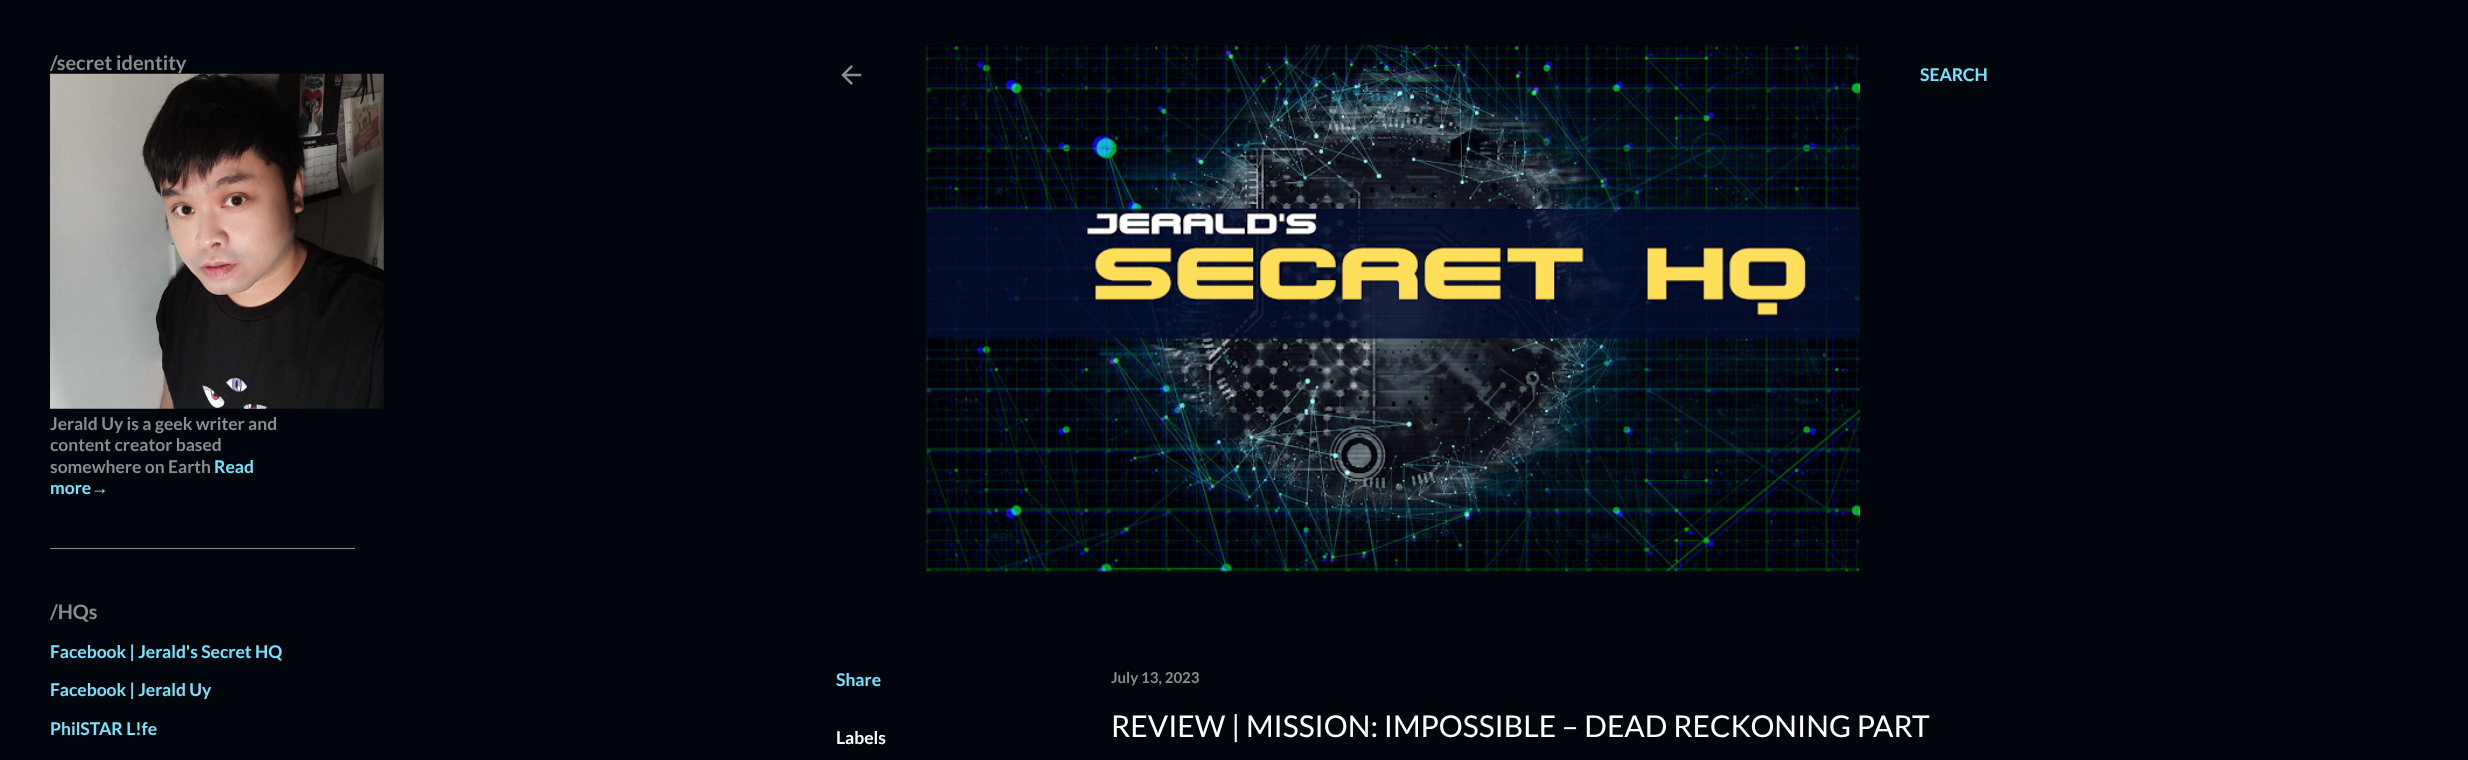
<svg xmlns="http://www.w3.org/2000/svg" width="2468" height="760">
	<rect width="100%" height="100%" fill="#01050C" />
	<text x="50" y="70" font-family="Lato" font-size="20" font-weight="700" fill="#8A8C8F">/secret identity</text>
	<image x="50" y="73" width="334" height="336" href="assets/img1.png" />
	<g font-family="Lato" font-size="17.5" font-weight="700" fill="#8A8C8F">
		<text x="50" y="430">Jerald Uy is a geek writer and</text>
		<text x="50" y="451">content creator based</text>
		<text x="50" y="473">somewhere on Earth</text>
	</g>
	<g font-family="Lato" font-size="17.5" font-weight="700" fill="#77E4FF">
		<text x="214" y="473">Read</text>
		<text x="50" y="494">more</text>
	</g>
	<text x="91" y="494" font-family="Liberation Sans" font-size="17.5" font-weight="700" fill="#77E4FF">→</text>
	<rect x="50" y="548" width="305" height="1" fill="#8A8C8F" />
	<text x="50" y="619" font-family="Lato" font-size="20" font-weight="700" fill="#8A8C8F">/HQs</text>
	<g font-family="Lato" font-size="17.5" font-weight="700" fill="#77E4FF">
		<text x="50" y="658">Facebook | Jerald's Secret HQ</text>
		<text x="50" y="696">Facebook | Jerald Uy</text>
		<text x="50" y="735">PhilSTAR L!fe</text>
	</g>
	<image x="841" y="65" width="21" height="20" href="assets/img2.png" />
	<image x="926" y="45" width="934" height="527" href="assets/img3.png" />
	<g font-family="Lato" font-size="17.5" font-weight="700" fill="#77E4FF">
		<text x="1920" y="81">SEARCH</text>
		<text x="836" y="686">Share</text>
	</g>
	<text x="836" y="744" font-family="Lato" font-size="17.5" font-weight="700" fill="#FFFFFF">Labels</text>
	<text x="1111" y="683" font-family="Lato" font-size="15" font-weight="700" fill="#8A8C8F">July 13, 2023</text>
	<text x="1111" y="737" font-family="Lato" font-size="30" fill="#FFFFFF">REVIEW | MISSION: IMPOSSIBLE – DEAD RECKONING PART</text>
</svg>
